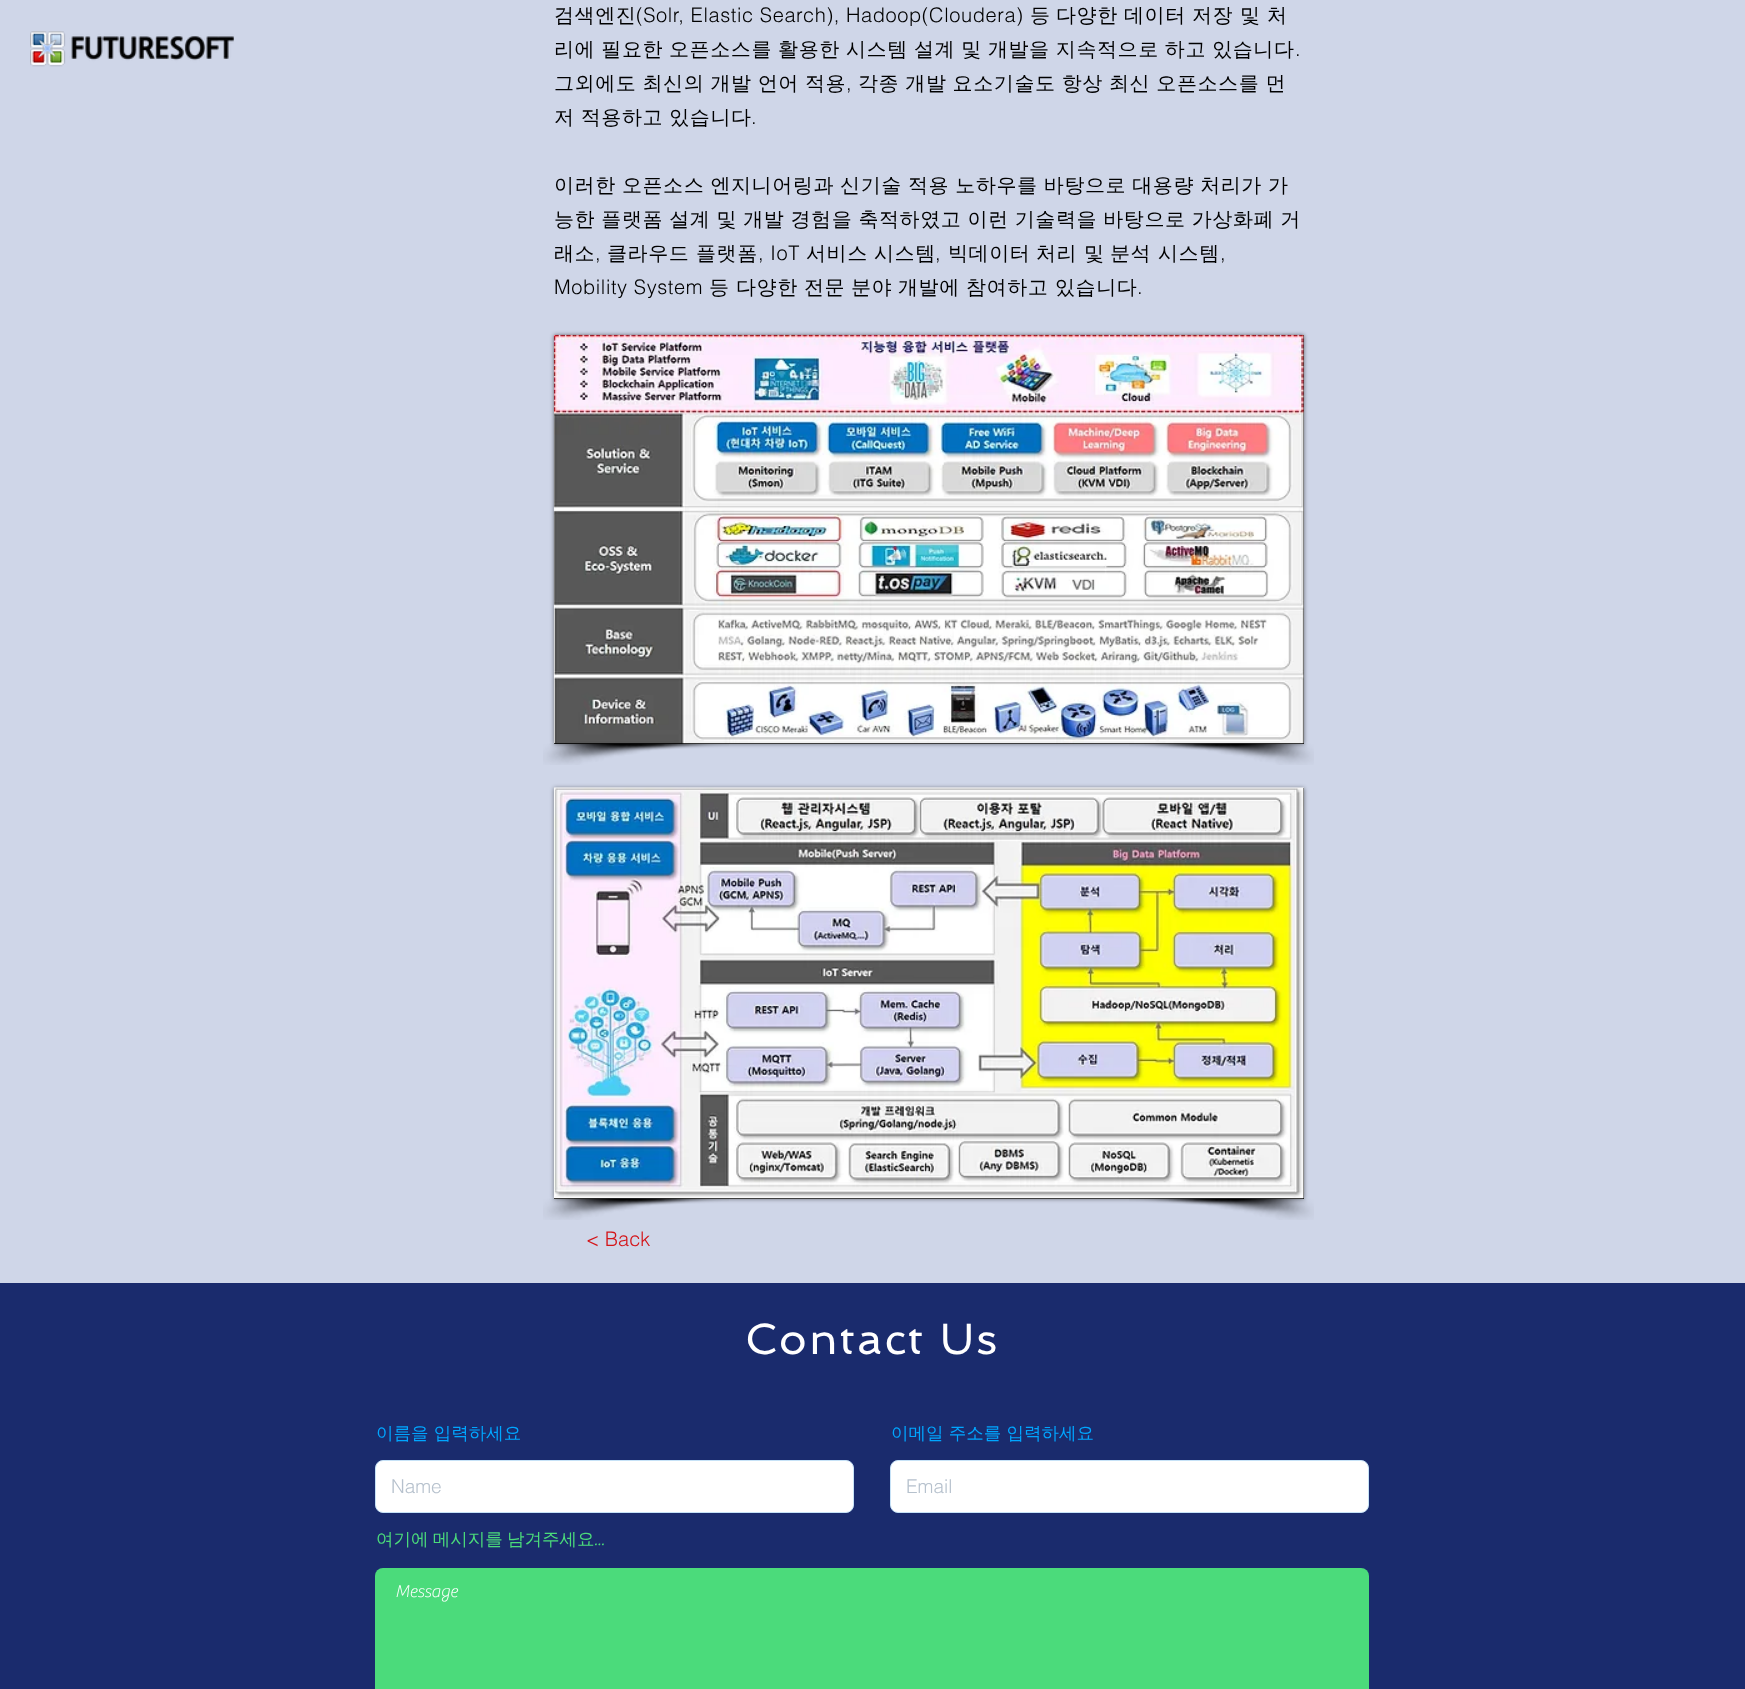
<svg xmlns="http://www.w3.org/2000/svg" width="1745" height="1689">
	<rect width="100%" height="100%" fill="#CFD6E8" />
	<image x="30" y="31" width="204" height="36" href="assets/img1.png" />
	<text x="554" y="22" font-family="WenQuanYi Zen Hei" font-size="20" font-weight="500" letter-spacing="0.6" fill="#000000">검색엔진</text>
	<text x="636" y="22" font-family="helvetica" font-size="20" font-weight="300" letter-spacing="0.6" fill="#000000">(Solr, Elastic Search), Hadoop(Cloudera)</text>
	<g font-family="WenQuanYi Zen Hei" font-size="20" font-weight="500" letter-spacing="0.6" fill="#000000">
		<text x="1030" y="22">등</text>
		<text x="1056" y="22">다양한</text>
		<text x="1124" y="22">데이터</text>
		<text x="1192" y="22">저장</text>
		<text x="1240" y="22">및</text>
		<text x="1267" y="22">처</text>
		<text x="554" y="56" word-spacing="-0.5">리에 필요한</text>
		<text x="669" y="56" word-spacing="-0.5">오픈소스를 활용한 시스템 설계 및 개발을 지속적으로 하고 있습니다</text>
	</g>
	<text x="1295" y="56" font-family="helvetica" font-size="20" font-weight="300" letter-spacing="0.6" fill="#000000">.</text>
	<text x="554" y="90" word-spacing="-0.5" font-family="WenQuanYi Zen Hei" font-size="20" font-weight="500" letter-spacing="0.6" fill="#000000">그외에도 최신의 개발 언어 적용</text>
	<text x="846" y="90" font-family="helvetica" font-size="20" font-weight="300" letter-spacing="0.6" fill="#000000">,</text>
	<g font-family="WenQuanYi Zen Hei" font-size="20" font-weight="500" letter-spacing="0.6" fill="#000000">
		<text x="858" y="90" word-spacing="-0.5">각종 개발 요소기술도 항상 최신 오픈소스를 먼</text>
		<text x="554" y="124" word-spacing="-0.5">저 적용하고 있습니다</text>
	</g>
	<text x="751" y="124" font-family="helvetica" font-size="20" font-weight="300" letter-spacing="0.6" fill="#000000">.</text>
	<g font-family="WenQuanYi Zen Hei" font-size="20" font-weight="500" letter-spacing="0.6" fill="#000000">
		<text x="554" y="192" word-spacing="-0.5">이러한 오픈소스 엔지니어링과 신기술 적용 노하우를 바탕으로 대용량 처리가 가</text>
		<text x="554" y="226" word-spacing="-0.5">능한 플랫폼 설계 및 개발 경험을 축적하였고 이런 기술력을 바탕으로 가상화폐 거</text>
		<text x="554" y="260">래소</text>
	</g>
	<text x="595" y="260" font-family="helvetica" font-size="20" font-weight="300" letter-spacing="0.6" fill="#000000">,</text>
	<g font-family="WenQuanYi Zen Hei" font-size="20" font-weight="500" letter-spacing="0.6" fill="#000000">
		<text x="607" y="260">클라우드</text>
		<text x="696" y="260">플랫폼</text>
	</g>
	<text x="758" y="260" font-family="helvetica" font-size="20" font-weight="300" letter-spacing="0.6" fill="#000000">, IoT</text>
	<g font-family="WenQuanYi Zen Hei" font-size="20" font-weight="500" letter-spacing="0.6" fill="#000000">
		<text x="806" y="260">서비스</text>
		<text x="874" y="260">시스템</text>
	</g>
	<text x="935" y="260" font-family="helvetica" font-size="20" font-weight="300" letter-spacing="0.6" fill="#000000">,</text>
	<g font-family="WenQuanYi Zen Hei" font-size="20" font-weight="500" letter-spacing="0.6" fill="#000000">
		<text x="948" y="260">빅데이터</text>
		<text x="1036" y="260">처리</text>
		<text x="1084" y="260">및</text>
		<text x="1110" y="260">분석</text>
		<text x="1158" y="260">시스템</text>
	</g>
	<g font-family="helvetica" font-size="20" font-weight="300" letter-spacing="0.6" fill="#000000">
		<text x="1220" y="260">,</text>
		<text x="554" y="294">Mobility System</text>
	</g>
	<g font-family="WenQuanYi Zen Hei" font-size="20" font-weight="500" letter-spacing="0.6" fill="#000000">
		<text x="709" y="294">등</text>
		<text x="736" y="294">다양한</text>
		<text x="804" y="294">전문</text>
		<text x="851" y="294">분야</text>
		<text x="898" y="294">개발에</text>
		<text x="966" y="294">참여하고</text>
		<text x="1055" y="294">있습니다</text>
	</g>
	<text x="1137" y="294" font-family="helvetica" font-size="20" font-weight="300" letter-spacing="0.6" fill="#000000">.</text>
	<rect x="554" y="335" width="750" height="409" fill="#000000" fill-opacity="0.5" filter="blur(2px)" />
	<rect x="554" y="335" width="750" height="409" fill="#000000" />
	<image x="553" y="334" width="751" height="410" href="assets/img2.png" />
	<image x="543" y="743" width="186" height="22" href="assets/img3.png" />
	<image x="1129" y="743" width="185" height="22" href="assets/img4.png" />
	<rect x="554" y="788" width="750" height="411" fill="#000000" fill-opacity="0.5" filter="blur(2px)" />
	<rect x="554" y="788" width="750" height="411" fill="#000000" />
	<image x="553" y="787" width="751" height="412" href="assets/img5.png" />
	<image x="543" y="1198" width="186" height="22" href="assets/img6.png" />
	<image x="1129" y="1198" width="185" height="22" href="assets/img7.png" />
	<text x="586" y="1246" font-family="helvetica" font-size="20" font-weight="300" fill="#D41317">&lt; Back</text>
	<rect x="0" y="1283" width="1745" height="406" fill="#1A2B6D" />
	<text x="745" y="1354" font-family="Spinnaker" font-size="43.75" letter-spacing="2.25" fill="#FFFFFF">Contact Us</text>
	<text x="376" y="1439" font-family="WenQuanYi Zen Hei" font-size="17.5" font-weight="500" fill="#00A6FF">이름을 입력하세요</text>
	<rect x="375.5" y="1460.5" width="478" height="52" rx="7.5" fill="#FFFFFF" stroke="#C6E2F7" />
	<text x="391" y="1493" font-family="helvetica" font-size="19" font-weight="300" fill="#B6C1CD">Name</text>
	<text x="891" y="1439" font-family="WenQuanYi Zen Hei" font-size="17.5" font-weight="500" fill="#00A6FF">이메일 주소를 입력하세요</text>
	<rect x="890.5" y="1460.5" width="478" height="52" rx="7.5" fill="#FFFFFF" stroke="#C6E2F7" />
	<text x="906" y="1493" font-family="helvetica" font-size="19" font-weight="300" fill="#B6C1CD">Email</text>
	<text x="376" y="1545" word-spacing="-1" font-family="WenQuanYi Zen Hei" font-size="17.5" font-weight="500" fill="#4BDB7B">여기에 메시지를 남겨주세요</text>
	<text x="594" y="1545" font-family="'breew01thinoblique'" font-size="17.5" font-weight="100" fill="#4BDB7B">...</text>
	<rect x="375" y="1568" width="994" height="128" rx="8" fill="#4BDB7B" />
	<text x="395" y="1597" font-family="'breew01thinoblique'" font-size="17.5" font-weight="100" fill="#FFFFFF">Message</text>
</svg>
